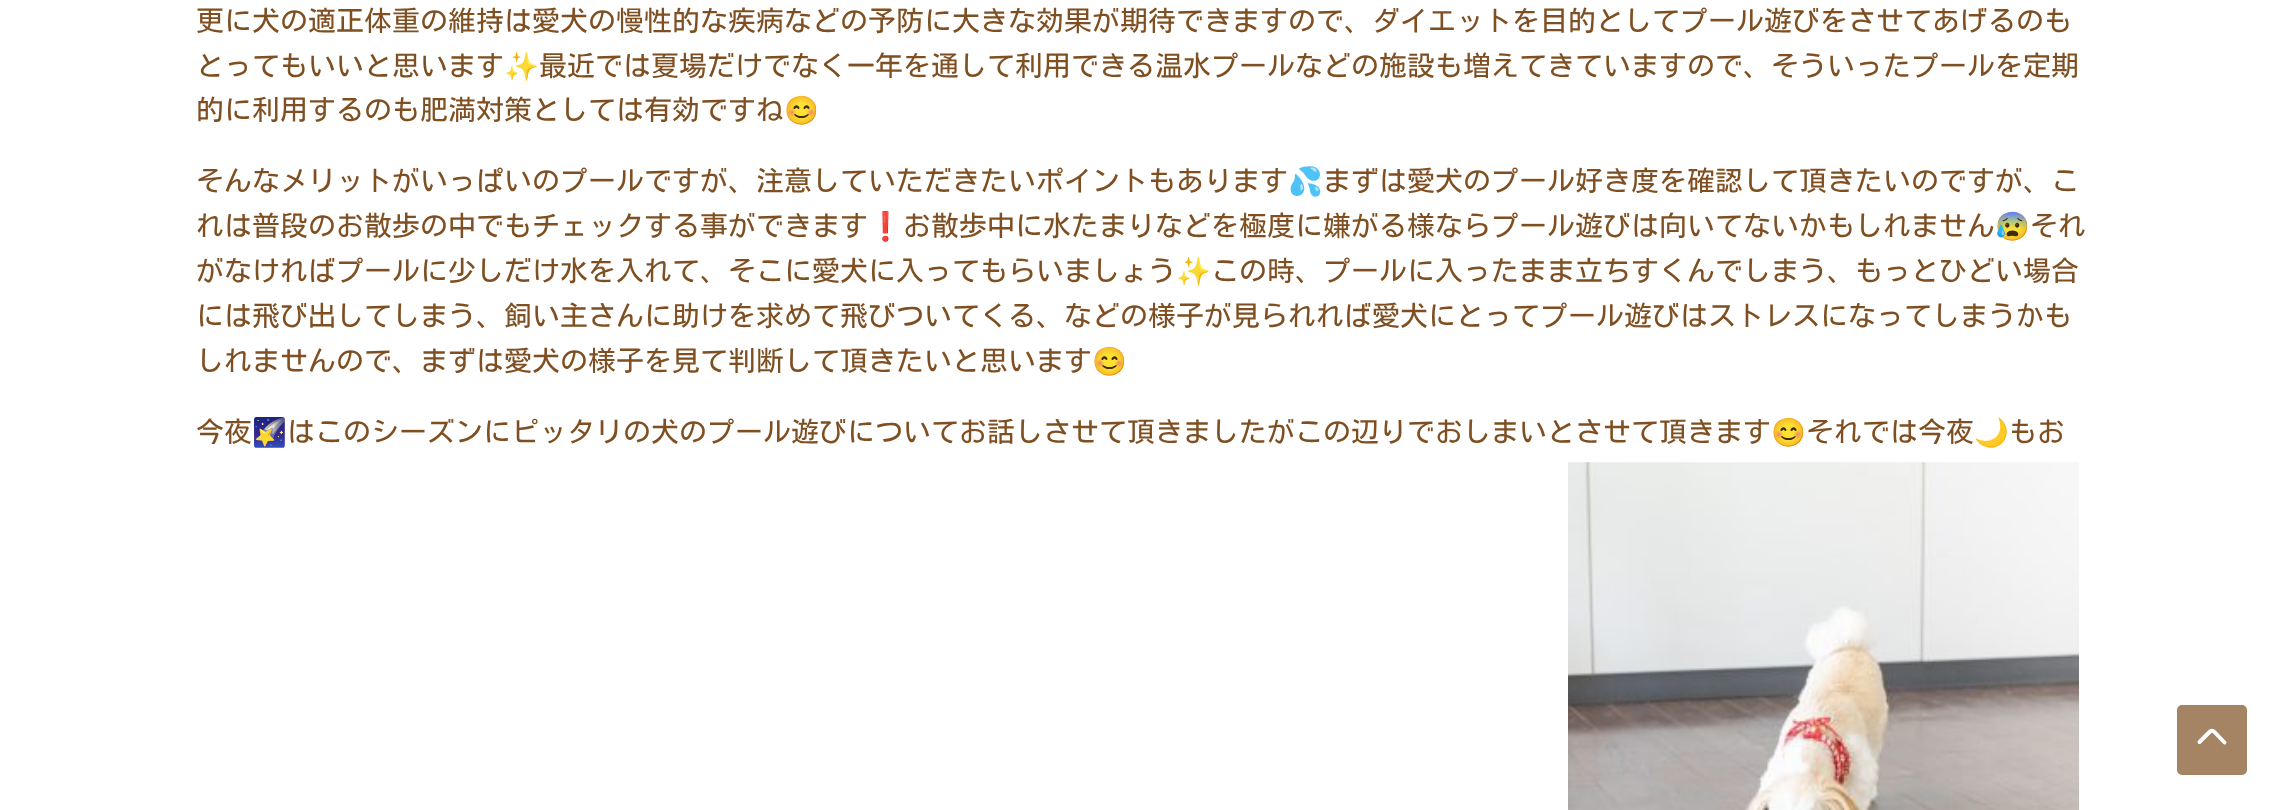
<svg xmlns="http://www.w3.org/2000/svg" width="2282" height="810">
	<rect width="100%" height="100%" fill="#FFFFFF" />
	<g font-family="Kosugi" font-size="28" fill="#7F4F21">
		<text x="196" y="31">更に犬の適正体重の維持は愛犬の慢性的な疾病などの予防に大きな効果が期待できますので、ダイエットを目的としてプール遊びをさせてあげるのも</text>
		<text x="196" y="76">とってもいいと思います</text>
	</g>
	<text x="504" y="76" font-family="Noto Color Emoji" font-size="28" fill="#7F4F21">✨</text>
	<g font-family="Kosugi" font-size="28" fill="#7F4F21">
		<text x="539" y="76">最近では夏場だけでなく一年を通して利用できる温水プールなどの施設も増えてきていますので、そういったプールを定期</text>
		<text x="196" y="120">的に利用するのも肥満対策としては有効ですね</text>
	</g>
	<text x="784" y="120" font-family="Noto Color Emoji" font-size="28" fill="#7F4F21">😊</text>
	<text x="196" y="191" font-family="Kosugi" font-size="28" fill="#7F4F21">そんなメリットがいっぱいのプールですが、注意していただきたいポイントもあります</text>
	<text x="1288" y="191" font-family="Noto Color Emoji" font-size="28" fill="#7F4F21">💦</text>
	<g font-family="Kosugi" font-size="28" fill="#7F4F21">
		<text x="1323" y="191">まずは愛犬のプール好き度を確認して頂きたいのですが、こ</text>
		<text x="196" y="236">れは普段のお散歩の中でもチェックする事ができます</text>
	</g>
	<text x="868" y="236" font-family="Noto Color Emoji" font-size="28" fill="#7F4F21">❗️</text>
	<text x="903" y="236" font-family="Kosugi" font-size="28" fill="#7F4F21">お散歩中に水たまりなどを極度に嫌がる様ならプール遊びは向いてないかもしれません</text>
	<text x="1995" y="236" font-family="Noto Color Emoji" font-size="28" fill="#7F4F21">😰</text>
	<g font-family="Kosugi" font-size="28" fill="#7F4F21">
		<text x="2030" y="236">それ</text>
		<text x="196" y="281">がなければプールに少しだけ水を入れて、そこに愛犬に入ってもらいましょう</text>
	</g>
	<text x="1176" y="281" font-family="Noto Color Emoji" font-size="28" fill="#7F4F21">✨</text>
	<g font-family="Kosugi" font-size="28" fill="#7F4F21">
		<text x="1211" y="281">この時、プールに入ったまま立ちすくんでしまう、もっとひどい場合</text>
		<text x="196" y="326">には飛び出してしまう、飼い主さんに助けを求めて飛びついてくる、などの様子が見られれば愛犬にとってプール遊びはストレスになってしまうかも</text>
		<text x="196" y="371">しれませんので、まずは愛犬の様子を見て判断して頂きたいと思います</text>
	</g>
	<text x="1092" y="371" font-family="Noto Color Emoji" font-size="28" fill="#7F4F21">😊</text>
	<text x="196" y="442" font-family="Kosugi" font-size="28" fill="#7F4F21">今夜</text>
	<text x="252" y="442" font-family="Noto Color Emoji" font-size="28" fill="#7F4F21">🌠</text>
	<text x="287" y="442" font-family="Kosugi" font-size="28" fill="#7F4F21">はこのシーズンにピッタリの犬のプール遊びについてお話しさせて頂きましたがこの辺りでおしまいとさせて頂きます</text>
	<text x="1771" y="442" font-family="Noto Color Emoji" font-size="28" fill="#7F4F21">😊</text>
	<text x="1806" y="442" font-family="Kosugi" font-size="28" fill="#7F4F21">それでは今夜</text>
	<text x="1974" y="442" font-family="Noto Color Emoji" font-size="28" fill="#7F4F21">🌙</text>
	<text x="2009" y="442" font-family="Kosugi" font-size="28" fill="#7F4F21">もお</text>
	<image x="1568" y="462" width="511" height="348" href="assets/img1.png" />
	<rect x="2177" y="705" width="70" height="70" rx="5" fill="#A58464" />
	<path d="M2224.5 742.5L2214 731.5C2212.5 730.5 2211 730.5 2210 731.5L2199.5 742" fill="none" stroke="#FFFFFF" stroke-width="3.9" stroke-linecap="round" stroke-linejoin="bevel" />
</svg>
